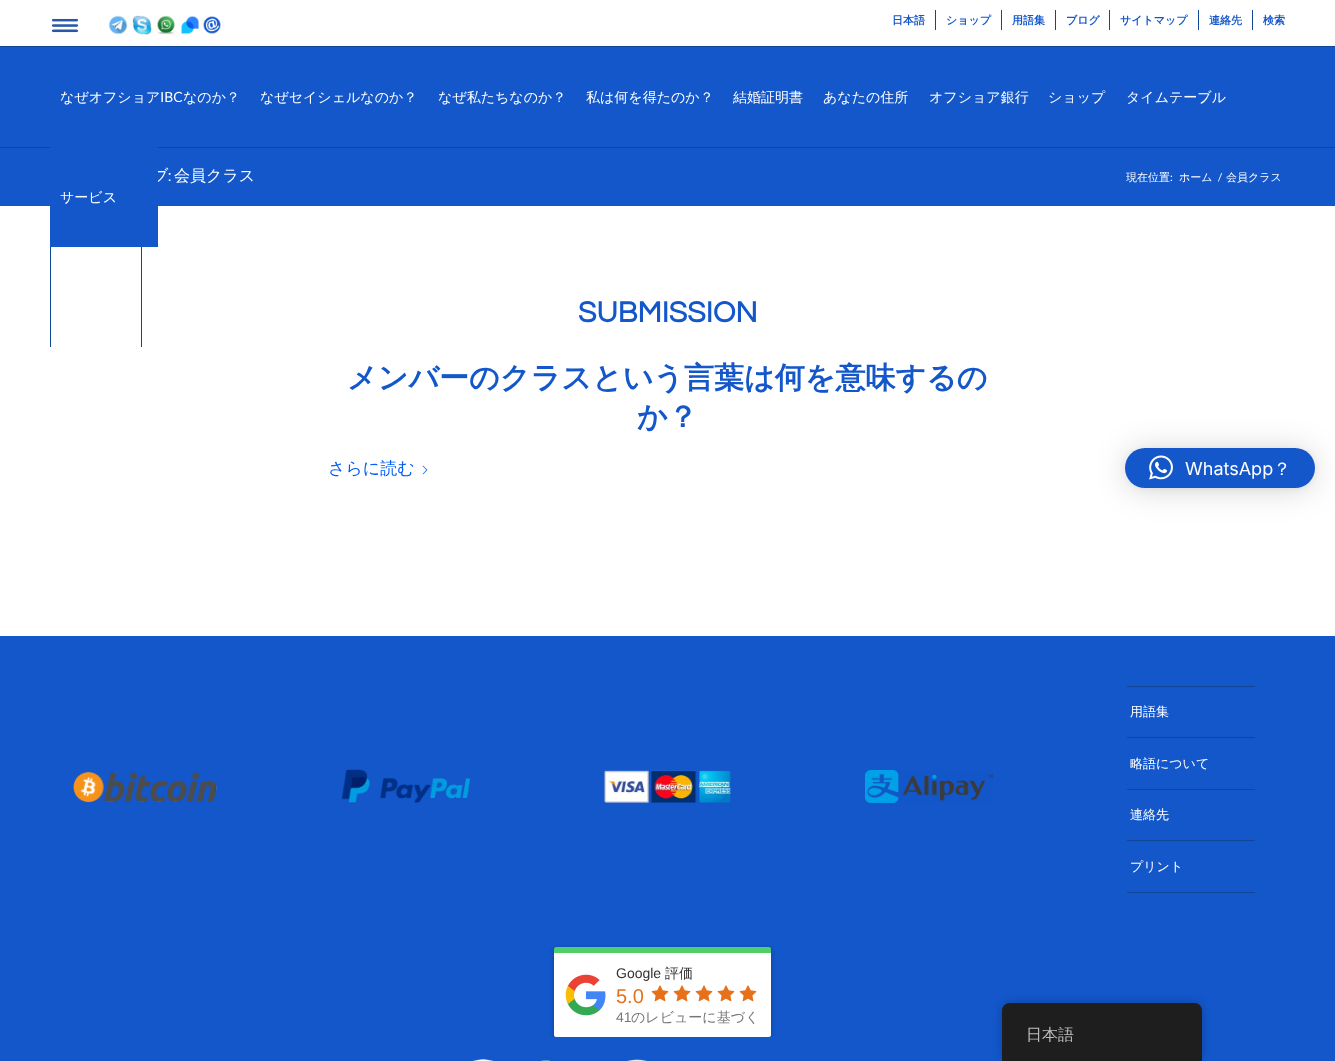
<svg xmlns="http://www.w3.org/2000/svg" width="1335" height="1061">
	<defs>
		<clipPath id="clip1"><rect x="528" y="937" width="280" height="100" /></clipPath>
	</defs>
	<rect width="100%" height="100%" fill="#1357CB" />
	<rect x="0" y="0" width="1335" height="46" fill="#FFFFFF" />
	<rect x="0" y="46" width="1335" height="1" fill="#104696" />
	<image x="51" y="18" width="28" height="15" href="assets/img1.png" />
	<image x="108" y="15" width="20" height="20" href="assets/img2.png" />
	<image x="132" y="15" width="20" height="20" href="assets/img3.png" />
	<image x="157" y="15" width="18" height="20" href="assets/img4.png" />
	<image x="181" y="16" width="19" height="18" href="assets/img5.png" />
	<image x="203" y="16" width="18" height="18" href="assets/img6.png" />
	<rect x="935" y="10" width="1" height="20" fill="#104696" />
	<text x="892" y="24" font-family="WenQuanYi Zen Hei" font-size="11" font-weight="700" fill="#1357CB">日本語</text>
	<rect x="1001" y="10" width="1" height="20" fill="#104696" />
	<text x="946" y="24" font-family="WenQuanYi Zen Hei" font-size="11" font-weight="700" fill="#1357CB">ショップ</text>
	<rect x="1055" y="10" width="1" height="20" fill="#104696" />
	<text x="1012" y="24" font-family="WenQuanYi Zen Hei" font-size="11" font-weight="700" fill="#1357CB">用語集</text>
	<rect x="1109" y="10" width="1" height="20" fill="#104696" />
	<text x="1066" y="24" font-family="WenQuanYi Zen Hei" font-size="11" font-weight="700" fill="#1357CB">ブログ</text>
	<rect x="1198" y="10" width="1" height="20" fill="#104696" />
	<text x="1120" y="24" font-family="WenQuanYi Zen Hei" font-size="11" font-weight="700" fill="#1357CB">サイトマップ</text>
	<rect x="1252" y="10" width="1" height="20" fill="#104696" />
	<g font-family="WenQuanYi Zen Hei" font-size="11" font-weight="700" fill="#1357CB">
		<text x="1209" y="24">連絡先</text>
		<text x="1263" y="24">検索</text>
	</g>
	<rect x="0" y="147" width="1335" height="1" fill="#104696" />
	<text x="60" y="102" font-family="WenQuanYi Zen Hei" font-size="14" font-weight="500" fill="#FFFFFF">なぜオフショア</text>
	<text x="160" y="102" font-family="Lato" font-size="14" fill="#FFFFFF">IBC</text>
	<g font-family="WenQuanYi Zen Hei" font-size="14" font-weight="500" fill="#FFFFFF">
		<text x="183" y="102">なのか？</text>
		<text x="260" y="102">なぜセイシェルなのか？</text>
		<text x="438" y="102">なぜ私たちなのか？</text>
		<text x="586" y="102">私は何を得たのか？</text>
		<text x="733" y="102">結婚証明書</text>
		<text x="823" y="102">あなたの住所</text>
		<text x="929" y="102">オフショア銀行</text>
		<text x="1048" y="102">ショップ</text>
		<text x="1126" y="102">タイムテーブル</text>
	</g>
	<text x="152" y="181" word-spacing="-1" font-family="WenQuanYi Zen Hei" font-size="16" font-weight="500" fill="#FFFFFF">ブ</text>
	<rect x="0" y="206" width="1335" height="430" fill="#FFFFFF" />
	<rect x="50" y="147" width="108" height="100" fill="#1357CB" />
	<text x="60" y="202" font-family="WenQuanYi Zen Hei" font-size="14" font-weight="500" fill="#FFFFFF">サービス</text>
	<rect x="141" y="247" width="1" height="100" fill="#104696" />
	<rect x="50" y="247" width="1" height="100" fill="#104696" />
	<text x="168" y="181" font-family="Questrial" font-size="16" fill="#FFFFFF">:</text>
	<text x="174" y="181" font-family="WenQuanYi Zen Hei" font-size="16" font-weight="500" fill="#FFFFFF">会員クラス</text>
	<text x="1126" y="181" font-family="WenQuanYi Zen Hei" font-size="11" font-weight="500" fill="#FFFFFF">現在位置</text>
	<text x="1170" y="181" font-family="Lato" font-size="11" fill="#FFFFFF">:</text>
	<text x="1179" y="181" font-family="WenQuanYi Zen Hei" font-size="11" font-weight="500" fill="#FFFFFF">ホーム</text>
	<text x="1218" y="181" font-family="Lato" font-size="11" fill="#FFFFFF">/</text>
	<text x="1226" y="181" font-family="WenQuanYi Zen Hei" font-size="11" font-weight="500" fill="#FFFFFF">会員クラス</text>
	<text x="578" y="322" font-family="Questrial" font-size="30" font-weight="700" fill="#1357CB">SUBMISSION</text>
	<g font-family="WenQuanYi Zen Hei" font-size="30" font-weight="700" fill="#1357CB">
		<text x="347" y="388">メンバーのクラスという言葉は何を意味するの</text>
		<text x="637" y="427">か？</text>
	</g>
	<text x="328" y="474" font-family="WenQuanYi Zen Hei" font-size="17" font-weight="500" fill="#005DF2">さらに読む</text>
	<image x="422" y="465" width="6" height="10" href="assets/img7.png" />
	<image x="73" y="771" width="144" height="32" href="assets/img8.png" />
	<image x="342" y="769" width="128" height="34" href="assets/img9.png" />
	<image x="604" y="770" width="127" height="33" href="assets/img10.png" />
	<image x="865" y="770" width="128" height="33" href="assets/img11.png" />
	<rect x="1127" y="686" width="128" height="1" fill="#104696" />
	<rect x="1127" y="737" width="128" height="1" fill="#104696" />
	<text x="1130" y="716" font-family="WenQuanYi Zen Hei" font-size="13" font-weight="500" fill="#FFFFFF">用語集</text>
	<rect x="1127" y="789" width="128" height="1" fill="#104696" />
	<text x="1130" y="768" font-family="WenQuanYi Zen Hei" font-size="13" font-weight="500" fill="#FFFFFF">略語について</text>
	<rect x="1127" y="840" width="128" height="1" fill="#104696" />
	<text x="1130" y="819" font-family="WenQuanYi Zen Hei" font-size="13" font-weight="500" fill="#FFFFFF">連絡先</text>
	<rect x="1127" y="892" width="128" height="1" fill="#104696" />
	<text x="1130" y="871" font-family="WenQuanYi Zen Hei" font-size="13" font-weight="500" fill="#FFFFFF">プリント</text>
	<g clip-path="url(#clip1)">
		<rect x="554" y="949" width="217" height="90" rx="2" fill="#000000" fill-opacity="0.26" filter="blur(2.5px)" />
	</g>
	<path d="M556 947H769C770 947 771 948 771 949V953H554V949C554 948 555 947 556 947Z" fill="#4FCE6A" />
	<path d="M554 953H771V1035C771 1036 770 1037 769 1037H556C555 1037 554 1036 554 1035Z" fill="#FFFFFF" />
	<image x="565" y="974" width="41" height="42" href="assets/img12.png" />
	<text x="616" y="978" font-family="Liberation Sans" font-size="14" fill="#333333">Google</text>
	<text x="665" y="978" font-family="WenQuanYi Zen Hei" font-size="14" font-weight="500" fill="#333333">評価</text>
	<text x="616" y="1003" font-family="Liberation Sans" font-size="20" fill="#E7711B">5.0</text>
	<image x="651" y="985" width="18" height="17" href="assets/img13.png" />
	<image x="673" y="985" width="18" height="17" href="assets/img13.png" />
	<image x="695" y="985" width="18" height="17" href="assets/img13.png" />
	<image x="717" y="985" width="18" height="17" href="assets/img13.png" />
	<image x="739" y="985" width="18" height="17" href="assets/img13.png" />
	<text x="616" y="1022" font-family="Liberation Sans" font-size="14" fill="#777777">41</text>
	<text x="631" y="1022" font-family="WenQuanYi Zen Hei" font-size="14" font-weight="500" fill="#777777">のレビューに基づく</text>
	<image x="472" y="1059" width="22" height="2" href="assets/img14.png" />
	<image x="539" y="1059" width="14" height="2" href="assets/img15.png" />
	<image x="627" y="1059" width="20" height="2" href="assets/img16.png" />
	<rect x="1125" y="450" width="190" height="40" rx="20" fill="#000000" fill-opacity="0.16" filter="blur(16px)" />
	<rect x="1125" y="449" width="190" height="40" rx="20" fill="#000000" fill-opacity="0.06" filter="blur(3px)" />
	<rect x="1125" y="448" width="190" height="40" rx="20" fill="#1357CB" />
	<image x="1149" y="455" width="24" height="25" href="assets/img17.png" />
	<text x="1185" y="475" font-family="Inter" font-size="18" fill="#FFFFFF">WhatsApp</text>
	<text x="1273" y="475" font-family="WenQuanYi Zen Hei" font-size="18" font-weight="500" fill="#FFFFFF">？</text>
	<rect x="1002" y="1003" width="200" height="58" rx="8" fill="#000000" fill-opacity="0.25" filter="blur(4px)" />
	<path d="M1010 1003H1194C1198.5 1003 1202 1006.5 1202 1011V1061H1002V1011C1002 1006.5 1005.5 1003 1010 1003Z" fill="#1E1E1E" />
	<text x="1026" y="1040" font-family="WenQuanYi Zen Hei" font-size="16" font-weight="500" fill="#BDBDBD">日本語</text>
</svg>
